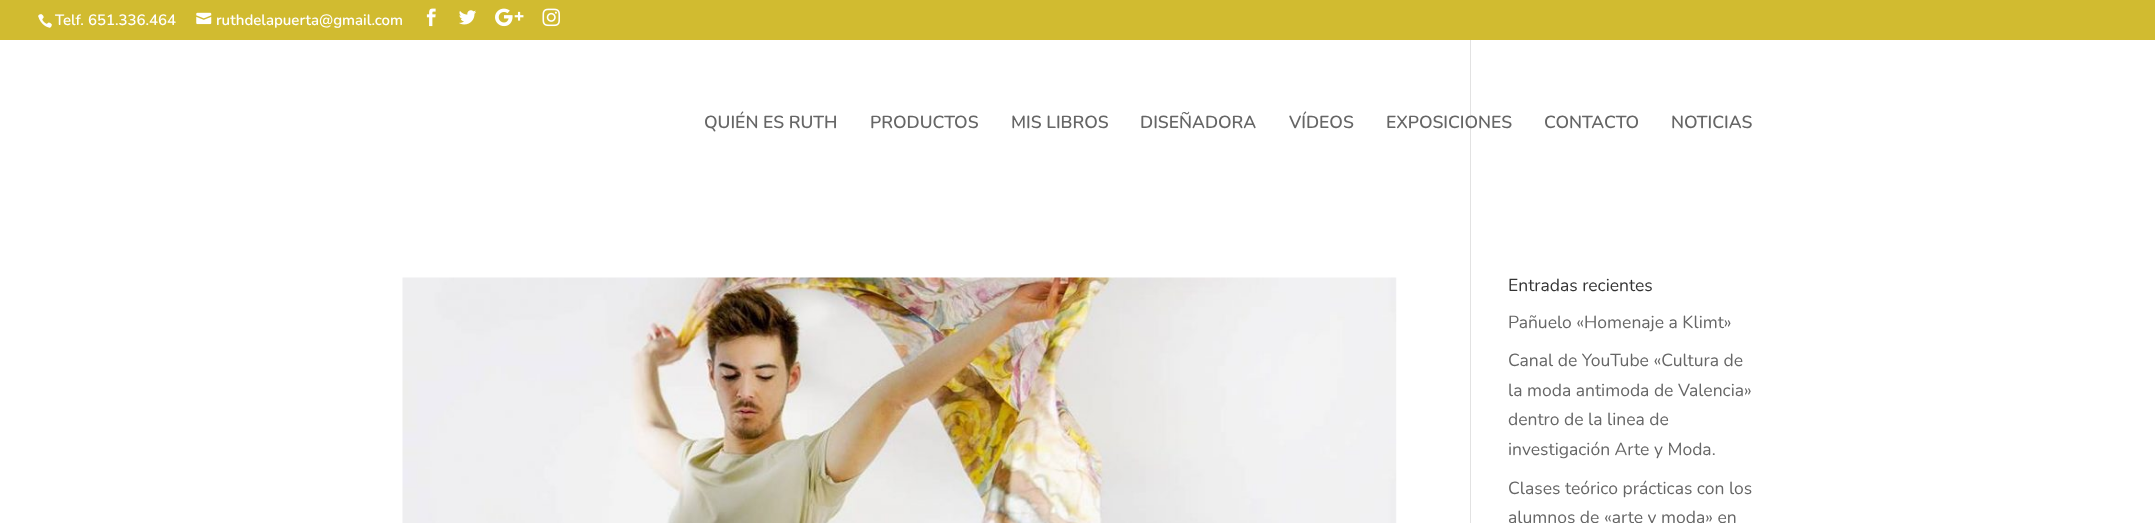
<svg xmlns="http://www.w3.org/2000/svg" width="2155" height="523">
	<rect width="100%" height="100%" fill="#FFFFFF" />
	<rect x="0" y="0" width="2155" height="40" fill="#D1BB30" />
	<image x="38" y="14" width="14" height="14" href="assets/img1.png" />
	<text x="55" y="25" font-family="Nunito" font-size="15" font-weight="600" fill="#FFFFFF">Telf. 651.336.464</text>
	<image x="196" y="12" width="16" height="13" href="assets/img2.png" />
	<text x="216" y="25" font-family="Nunito" font-size="15" font-weight="600" fill="#FFFFFF">ruthdelapuerta@gmail.com</text>
	<image x="426" y="8" width="10" height="19" href="assets/img3.png" />
	<image x="459" y="10" width="17" height="15" href="assets/img4.png" />
	<image x="495" y="8" width="29" height="19" href="assets/img5.png" />
	<image x="542" y="8" width="18" height="19" href="assets/img6.png" />
	<g font-family="Nunito" font-size="17.5" font-weight="600" fill="#666666">
		<text x="704" y="128">QUIÉN ES RUTH</text>
		<text x="870" y="128">PRODUCTOS</text>
		<text x="1011" y="128">MIS LIBROS</text>
		<text x="1140" y="128">DISEÑADORA</text>
		<text x="1289" y="128">VÍDEOS</text>
	</g>
	<rect x="1470" y="40" width="1" height="483" fill="#E2E2E2" />
	<g font-family="Nunito" font-size="17.5" font-weight="600" fill="#666666">
		<text x="1386" y="128">EXPOSICIONES</text>
		<text x="1544" y="128">CONTACTO</text>
		<text x="1671" y="128">NOTICIAS</text>
	</g>
	<image x="402" y="277" width="995" height="246" href="assets/img7.png" />
	<text x="1508" y="291" font-family="Nunito" font-size="17.5" fill="#333333">Entradas recientes</text>
	<g font-family="Nunito" font-size="17.5" fill="#666666">
		<text x="1508" y="328">Pañuelo «Homenaje a Klimt»</text>
		<text x="1508" y="366">Canal de YouTube «Cultura de</text>
		<text x="1508" y="396">la moda antimoda de Valencia»</text>
		<text x="1508" y="425">dentro de la linea de</text>
		<text x="1508" y="455">investigación Arte y Moda.</text>
		<text x="1508" y="494">Clases teórico prácticas con los</text>
		<text x="1508" y="523">alumnos de «arte y moda» en</text>
	</g>
</svg>
